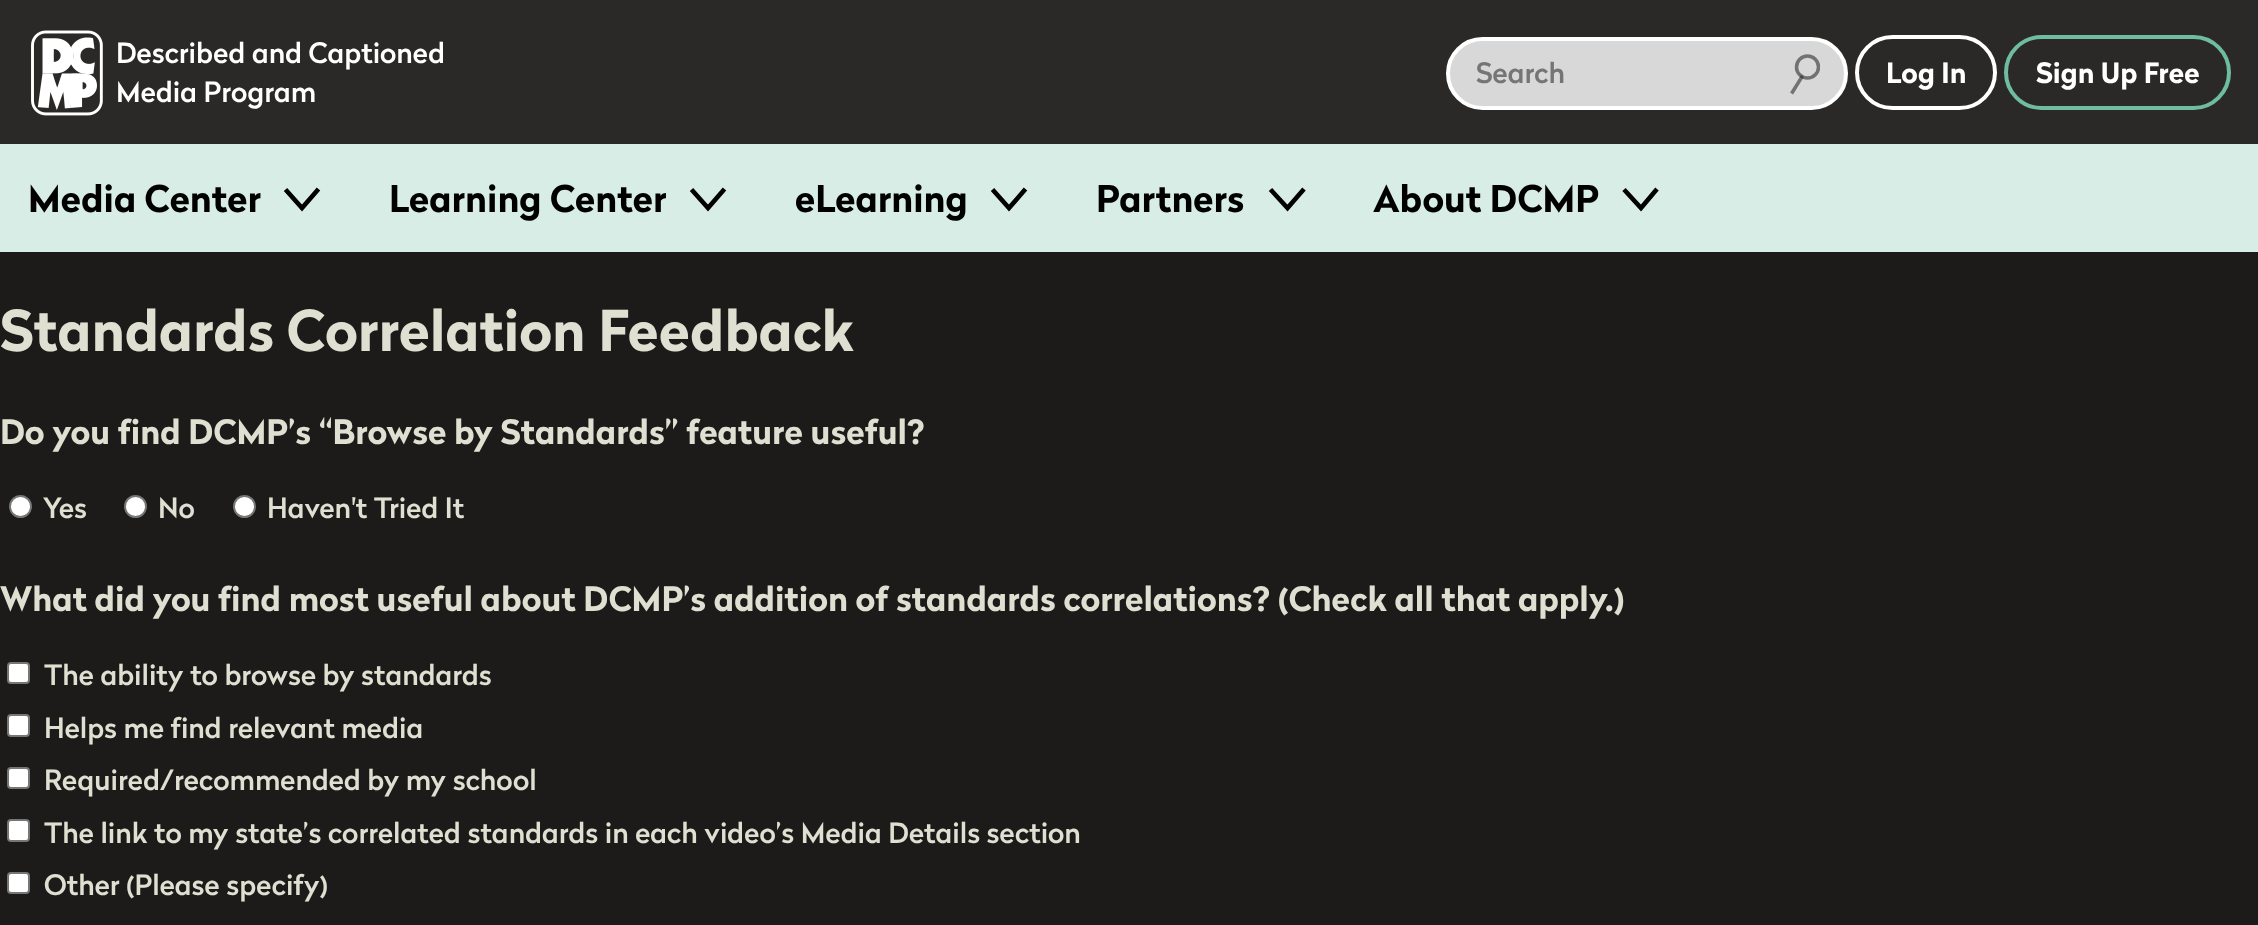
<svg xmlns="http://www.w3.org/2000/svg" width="2258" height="925">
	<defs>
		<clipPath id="clip1"><rect x="1790" y="54" width="30" height="41" /></clipPath>
	</defs>
	<rect width="100%" height="100%" fill="#1C1B1A" />
	<rect x="0" y="0" width="2258" height="144" fill="#2B2927" />
	<image x="31" y="30" width="72" height="86" href="assets/img1.png" />
	<g font-family="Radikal" font-size="28" font-weight="500" fill="#FFFFFF">
		<text x="116" y="63">Described and Captioned</text>
		<text x="116" y="102">Media Program</text>
	</g>
	<rect x="1448" y="39" width="398" height="69" rx="34.5" fill="#D8D8D8" stroke="#FFFFFF" stroke-width="4" />
	<text x="1476" y="83" font-family="Radikal" font-size="28" font-weight="500" fill="#757575">Search</text>
	<g clip-path="url(#clip1)">
		<circle cx="1807.5" cy="67" r="11" fill="none" stroke="#747271" stroke-width="3.5" />
	</g>
	<path d="M1801.5 77.5L1792.5 92" fill="none" stroke="#2B2927" stroke-opacity="0.58" stroke-width="3.5" stroke-linecap="square" />
	<rect x="1857" y="37" width="138" height="71" rx="35.5" fill="none" stroke="#FFFFFF" stroke-width="4" />
	<text x="1886" y="83" font-family="Radikal" font-size="28" font-weight="700" fill="#FFFFFF">Log In</text>
	<rect x="2006" y="37" width="223" height="71" rx="35.5" fill="none" stroke="#6EBDA0" stroke-width="4" />
	<text x="2036" y="83" font-family="Radikal" font-size="28" font-weight="700" fill="#FFFFFF">Sign Up Free</text>
	<rect x="0" y="144" width="2258" height="108" fill="#D7EDE5" />
	<text x="28" y="212" font-family="Radikal" font-size="36.75" font-weight="700" fill="#000000">Media Center</text>
	<path d="M285.5 189.5L302 208L318.5 189" fill="none" stroke="#010101" stroke-width="4.6" />
	<text x="389" y="212" font-family="Radikal" font-size="36.75" font-weight="700" fill="#000000">Learning Center</text>
	<path d="M691.5 189.5L708 208L724.5 189" fill="none" stroke="#010101" stroke-width="4.6" />
	<text x="795" y="212" font-family="Radikal" font-size="36.75" font-weight="700" fill="#000000">eLearning</text>
	<path d="M992.5 189.5L1009 208L1025.5 189" fill="none" stroke="#010101" stroke-width="4.6" />
	<text x="1096" y="212" font-family="Radikal" font-size="36.75" font-weight="700" fill="#000000">Partners</text>
	<path d="M1270.5 189.5L1287.5 208L1304 189" fill="none" stroke="#010101" stroke-width="4.6" />
	<text x="1373" y="212" font-family="Radikal" font-size="36.75" font-weight="700" fill="#000000">About DCMP</text>
	<path d="M1624 189.5L1641 208L1657 189" fill="none" stroke="#010101" stroke-width="4.6" />
	<text x="0" y="351" font-family="Radikal" font-size="56" font-weight="700" fill="#DFE0D1">Standards Correlation Feedback</text>
	<text x="0" y="444" font-family="Radikal" font-size="33.6" font-weight="700" fill="#DFE0D1">Do you find DCMP’s “Browse by Standards” feature useful?</text>
	<circle cx="20.5" cy="506.5" r="10.5" fill="#FFFFFF" stroke="#767676" stroke-width="2" />
	<text x="43" y="518" font-family="Radikal" font-size="28" font-weight="500" fill="#DFE0D1">Yes</text>
	<circle cx="135.5" cy="506.5" r="10.5" fill="#FFFFFF" stroke="#767676" stroke-width="2" />
	<text x="158" y="518" font-family="Radikal" font-size="28" font-weight="500" fill="#DFE0D1">No</text>
	<circle cx="244.5" cy="506.5" r="10.5" fill="#FFFFFF" stroke="#767676" stroke-width="2" />
	<text x="267" y="518" font-family="Radikal" font-size="28" font-weight="500" fill="#DFE0D1">Haven't Tried It</text>
	<text x="0" y="611" font-family="Radikal" font-size="33.6" font-weight="700" fill="#DFE0D1">What did you find most useful about DCMP’s addition of standards correlations? (Check all that apply.)</text>
	<rect x="8" y="663" width="21" height="20" rx="3" fill="#FFFFFF" stroke="#767676" stroke-width="2" />
	<text x="44" y="685" font-family="Radikal" font-size="28" font-weight="500" fill="#DFE0D1">The ability to browse by standards</text>
	<rect x="8" y="715" width="21" height="21" rx="3" fill="#FFFFFF" stroke="#767676" stroke-width="2" />
	<text x="44" y="738" font-family="Radikal" font-size="28" font-weight="500" fill="#DFE0D1">Helps me find relevant media</text>
	<rect x="8" y="768" width="21" height="20" rx="3" fill="#FFFFFF" stroke="#767676" stroke-width="2" />
	<text x="44" y="790" font-family="Radikal" font-size="28" font-weight="500" fill="#DFE0D1">Required/recommended by my school</text>
	<rect x="8" y="820" width="21" height="21" rx="3" fill="#FFFFFF" stroke="#767676" stroke-width="2" />
	<text x="44" y="843" font-family="Radikal" font-size="28" font-weight="500" fill="#DFE0D1">The link to my state’s correlated standards in each video’s Media Details section</text>
	<rect x="8" y="873" width="21" height="20" rx="3" fill="#FFFFFF" stroke="#767676" stroke-width="2" />
	<text x="44" y="895" font-family="Radikal" font-size="28" font-weight="500" fill="#DFE0D1">Other (Please specify)</text>
</svg>
